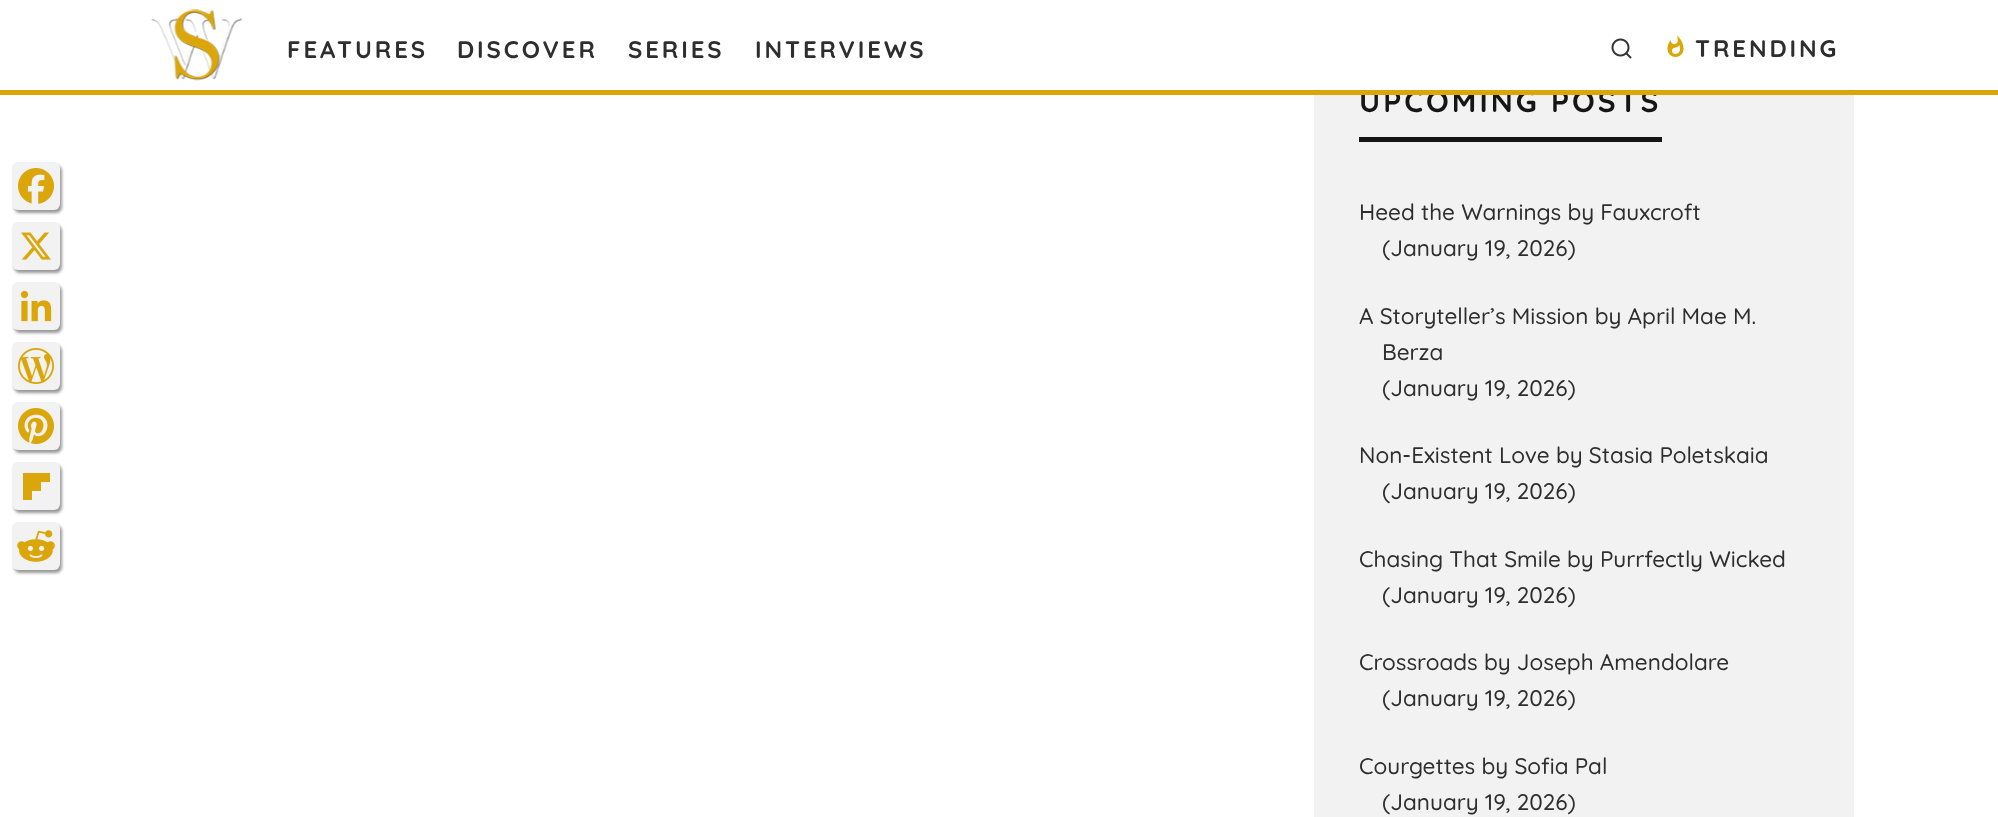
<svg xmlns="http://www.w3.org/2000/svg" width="1998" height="817">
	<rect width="100%" height="100%" fill="#FFFFFF" />
	<rect x="14" y="165" width="48" height="48" rx="6" fill="#999999" filter="blur(1.5px)" />
	<rect x="12" y="162" width="48" height="48" rx="6" fill="#F2F2F2" />
	<image x="18" y="168" width="36" height="36" href="assets/img1.png" />
	<rect x="14" y="225" width="48" height="48" rx="6" fill="#999999" filter="blur(1.5px)" />
	<rect x="12" y="222" width="48" height="48" rx="6" fill="#F2F2F2" />
	<image x="21" y="232" width="30" height="28" href="assets/img2.png" />
	<rect x="14" y="285" width="48" height="48" rx="6" fill="#999999" filter="blur(1.5px)" />
	<rect x="12" y="282" width="48" height="48" rx="6" fill="#F2F2F2" />
	<image x="20" y="290" width="32" height="32" href="assets/img3.png" />
	<rect x="14" y="345" width="48" height="48" rx="6" fill="#999999" filter="blur(1.5px)" />
	<rect x="12" y="342" width="48" height="48" rx="6" fill="#F2F2F2" />
	<image x="18" y="348" width="36" height="36" href="assets/img4.png" />
	<rect x="14" y="405" width="48" height="48" rx="6" fill="#999999" filter="blur(1.5px)" />
	<rect x="12" y="402" width="48" height="48" rx="6" fill="#F2F2F2" />
	<image x="18" y="408" width="36" height="36" href="assets/img5.png" />
	<rect x="14" y="465" width="48" height="48" rx="6" fill="#999999" filter="blur(1.5px)" />
	<rect x="12" y="462" width="48" height="48" rx="6" fill="#F2F2F2" />
	<rect x="32" y="482" width="9" height="9" fill="#DBA609" />
	<rect x="32" y="473" width="18" height="9" fill="#DBA609" />
	<rect x="23" y="473" width="9" height="27" fill="#DBA609" />
	<rect x="14" y="525" width="48" height="48" rx="6" fill="#999999" filter="blur(1.5px)" />
	<rect x="12" y="522" width="48" height="48" rx="6" fill="#F2F2F2" />
	<image x="17" y="530" width="38" height="32" href="assets/img6.png" />
	<rect x="1314" y="95" width="540" height="722" fill="#F2F2F2" />
	<text x="1359" y="112" font-family="Quicksand" font-size="30" font-weight="700" letter-spacing="3" fill="#161616">UPCOMING POSTS</text>
	<rect x="0" y="90" width="1998" height="5" fill="#DBA609" />
	<image x="151" y="9" width="91" height="72" href="assets/img7.png" />
	<g font-family="Quicksand" font-size="24" font-weight="700" letter-spacing="2.9" fill="#2E2E2E">
		<text x="287" y="58">FEATURES</text>
		<text x="457" y="58">DISCOVER</text>
		<text x="628" y="58">SERIES</text>
		<text x="755" y="58">INTERVIEWS</text>
	</g>
	<image x="1611" y="38" width="21" height="21" href="assets/img8.png" />
	<image x="1667" y="35" width="17" height="22" href="assets/img9.png" />
	<text x="1695" y="57" font-family="Quicksand" font-size="24" font-weight="700" letter-spacing="2.9" fill="#2E2E2E">TRENDING</text>
	<rect x="1359" y="137" width="303" height="5" fill="#161616" />
	<g font-family="Quicksand" font-size="22.5" font-weight="500" fill="#2E2E2E">
		<text x="1359" y="220">Heed the Warnings by Fauxcroft</text>
		<text x="1382" y="256">(January 19, 2026)</text>
		<text x="1359" y="324">A Storyteller’s Mission by April Mae M.</text>
		<text x="1382" y="360">Berza</text>
		<text x="1382" y="396">(January 19, 2026)</text>
		<text x="1359" y="463">Non-Existent Love by Stasia Poletskaia</text>
		<text x="1382" y="499">(January 19, 2026)</text>
		<text x="1359" y="567">Chasing That Smile by Purrfectly Wicked</text>
		<text x="1382" y="603">(January 19, 2026)</text>
		<text x="1359" y="670">Crossroads by Joseph Amendolare</text>
		<text x="1382" y="706">(January 19, 2026)</text>
		<text x="1359" y="774">Courgettes by Sofia Pal</text>
		<text x="1382" y="810">(January 19, 2026)</text>
	</g>
</svg>
